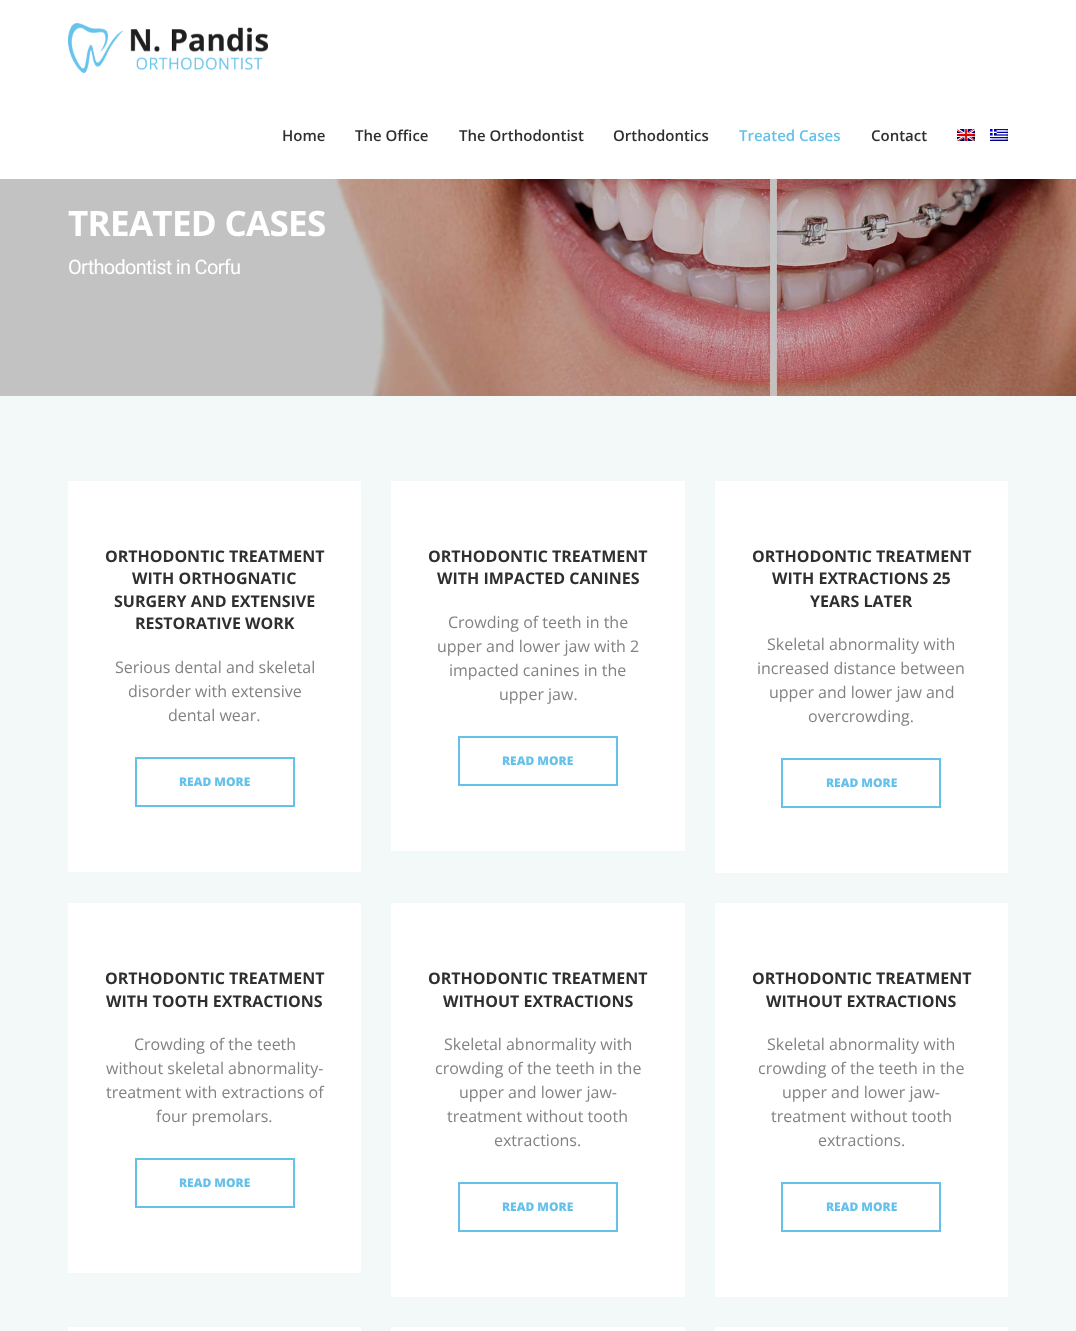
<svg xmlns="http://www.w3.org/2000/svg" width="1076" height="1331">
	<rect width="100%" height="100%" fill="#F3F9F9" />
	<rect x="0" y="0" width="1076" height="179" fill="#FFFFFF" />
	<image x="68" y="23" width="200" height="50" href="assets/img1.png" />
	<g font-family="Open Sans" font-size="15" font-weight="600" fill="#2F2F2F">
		<text x="282" y="141">Home</text>
		<text x="355" y="141">The Office</text>
		<text x="459" y="141">The Orthodontist</text>
		<text x="613" y="141">Orthodontics</text>
	</g>
	<text x="739" y="141" font-family="Open Sans" font-size="15" font-weight="600" fill="#65C1EA">Treated Cases</text>
	<text x="871" y="141" font-family="Open Sans" font-size="15" font-weight="600" fill="#2F2F2F">Contact</text>
	<image x="957" y="129" width="18" height="12" href="assets/img2.png" />
	<image x="990" y="129" width="18" height="12" href="assets/img3.png" />
	<image x="0" y="179" width="1076" height="217" href="assets/img4.png" />
	<text x="68" y="236" font-family="Open Sans" font-size="35" font-weight="700" letter-spacing="-0.7" fill="#FFFFFF">TREATED CASES</text>
	<text x="68" y="274" font-family="Roboto" font-size="20" letter-spacing="-0.7" fill="#FFFFFF">Orthodontist in Corfu</text>
	<rect x="68" y="481" width="293" height="391" fill="#FFFFFF" />
	<g font-family="Open Sans" font-size="16" font-weight="700" fill="#2F2F2F">
		<text x="105" y="562">ORTHODONTIC TREATMENT</text>
		<text x="132" y="584">WITH ORTHOGNATIC</text>
		<text x="114" y="607">SURGERY AND EXTENSIVE</text>
		<text x="135" y="629">RESTORATIVE WORK</text>
	</g>
	<g font-family="Open Sans" font-size="16" fill="#828282">
		<text x="115" y="673">Serious dental and skeletal</text>
		<text x="128" y="697">disorder with extensive</text>
		<text x="168" y="721">dental wear.</text>
	</g>
	<rect x="136" y="758" width="158" height="48" fill="none" stroke="#65C1EA" stroke-width="2" />
	<text x="179" y="786" font-family="Open Sans" font-size="12" font-weight="800" fill="#65C1EA">READ MORE</text>
	<rect x="391" y="481" width="294" height="370" fill="#FFFFFF" />
	<g font-family="Open Sans" font-size="16" font-weight="700" fill="#2F2F2F">
		<text x="428" y="562">ORTHODONTIC TREATMENT</text>
		<text x="437" y="584">WITH IMPACTED CANINES</text>
	</g>
	<g font-family="Open Sans" font-size="16" fill="#828282">
		<text x="448" y="628">Crowding of teeth in the</text>
		<text x="437" y="652">upper and lower jaw with 2</text>
		<text x="449" y="676">impacted canines in the</text>
		<text x="499" y="700">upper jaw.</text>
	</g>
	<rect x="459" y="737" width="158" height="48" fill="none" stroke="#65C1EA" stroke-width="2" />
	<text x="502" y="765" font-family="Open Sans" font-size="12" font-weight="800" fill="#65C1EA">READ MORE</text>
	<rect x="715" y="481" width="293" height="392" fill="#FFFFFF" />
	<g font-family="Open Sans" font-size="16" font-weight="700" fill="#2F2F2F">
		<text x="752" y="562">ORTHODONTIC TREATMENT</text>
		<text x="772" y="584">WITH EXTRACTIONS 25</text>
		<text x="810" y="607">YEARS LATER</text>
	</g>
	<g font-family="Open Sans" font-size="16" fill="#828282">
		<text x="767" y="650">Skeletal abnormality with</text>
		<text x="757" y="674">increased distance between</text>
		<text x="769" y="698">upper and lower jaw and</text>
		<text x="808" y="722">overcrowding.</text>
	</g>
	<rect x="782" y="759" width="158" height="48" fill="none" stroke="#65C1EA" stroke-width="2" />
	<text x="826" y="787" font-family="Open Sans" font-size="12" font-weight="800" fill="#65C1EA">READ MORE</text>
	<rect x="68" y="903" width="293" height="370" fill="#FFFFFF" />
	<g font-family="Open Sans" font-size="16" font-weight="700" fill="#2F2F2F">
		<text x="105" y="984">ORTHODONTIC TREATMENT</text>
		<text x="106" y="1007">WITH TOOTH EXTRACTIONS</text>
	</g>
	<g font-family="Open Sans" font-size="16" fill="#828282">
		<text x="134" y="1050">Crowding of the teeth</text>
		<text x="106" y="1074">without skeletal abnormality-</text>
		<text x="106" y="1098">treatment with extractions of</text>
		<text x="156" y="1122">four premolars.</text>
	</g>
	<rect x="136" y="1159" width="158" height="48" fill="none" stroke="#65C1EA" stroke-width="2" />
	<text x="179" y="1187" font-family="Open Sans" font-size="12" font-weight="800" fill="#65C1EA">READ MORE</text>
	<rect x="391" y="903" width="294" height="394" fill="#FFFFFF" />
	<g font-family="Open Sans" font-size="16" font-weight="700" fill="#2F2F2F">
		<text x="428" y="984">ORTHODONTIC TREATMENT</text>
		<text x="443" y="1007">WITHOUT EXTRACTIONS</text>
	</g>
	<g font-family="Open Sans" font-size="16" fill="#828282">
		<text x="444" y="1050">Skeletal abnormality with</text>
		<text x="435" y="1074">crowding of the teeth in the</text>
		<text x="459" y="1098">upper and lower jaw-</text>
		<text x="447" y="1122">treatment without tooth</text>
		<text x="494" y="1146">extractions.</text>
	</g>
	<rect x="459" y="1183" width="158" height="48" fill="none" stroke="#65C1EA" stroke-width="2" />
	<text x="502" y="1211" font-family="Open Sans" font-size="12" font-weight="800" fill="#65C1EA">READ MORE</text>
	<rect x="715" y="903" width="293" height="394" fill="#FFFFFF" />
	<g font-family="Open Sans" font-size="16" font-weight="700" fill="#2F2F2F">
		<text x="752" y="984">ORTHODONTIC TREATMENT</text>
		<text x="766" y="1007">WITHOUT EXTRACTIONS</text>
	</g>
	<g font-family="Open Sans" font-size="16" fill="#828282">
		<text x="767" y="1050">Skeletal abnormality with</text>
		<text x="758" y="1074">crowding of the teeth in the</text>
		<text x="782" y="1098">upper and lower jaw-</text>
		<text x="771" y="1122">treatment without tooth</text>
		<text x="818" y="1146">extractions.</text>
	</g>
	<rect x="782" y="1183" width="158" height="48" fill="none" stroke="#65C1EA" stroke-width="2" />
	<text x="826" y="1211" font-family="Open Sans" font-size="12" font-weight="800" fill="#65C1EA">READ MORE</text>
	<rect x="68" y="1327" width="293" height="4" fill="#FFFFFF" />
	<rect x="391" y="1327" width="294" height="4" fill="#FFFFFF" />
	<rect x="715" y="1327" width="293" height="4" fill="#FFFFFF" />
</svg>
